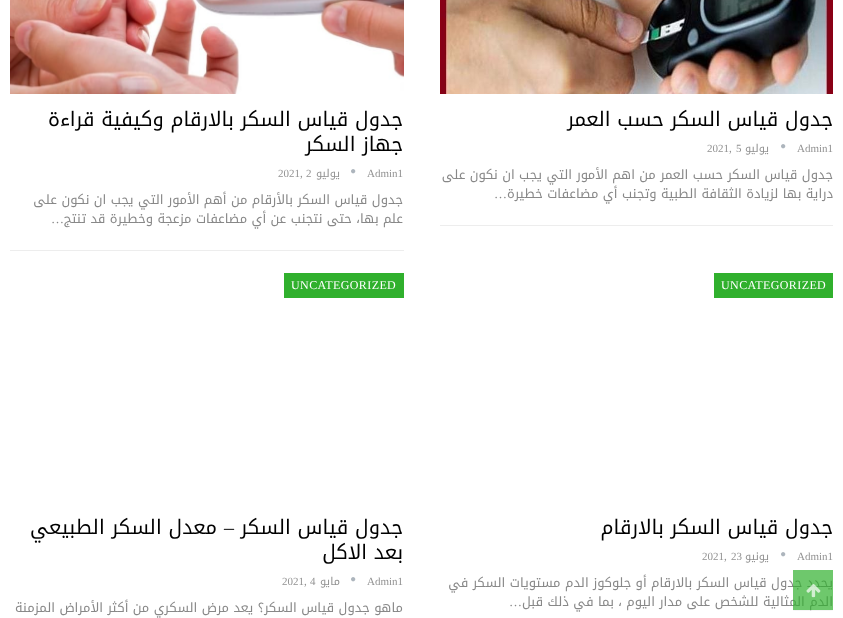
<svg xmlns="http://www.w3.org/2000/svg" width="843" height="618">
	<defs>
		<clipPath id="clip1"><rect x="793" y="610" width="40" height="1" /></clipPath>
	</defs>
	<rect width="100%" height="100%" fill="#FFFFFF" />
	<image x="440" y="0" width="393" height="94" href="assets/img1.png" />
	<text x="833" y="126" font-family="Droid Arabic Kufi" font-size="20" direction="rtl" fill="#000000">جدول قياس السكر حسب العمر</text>
	<text x="797" y="152" font-family="Liberation Serif" font-size="11" fill="#929292">Admin1</text>
	<image x="781" y="144" width="5" height="5" href="assets/img2.png" />
	<text x="769" y="152" font-family="Droid Arabic Kufi" font-size="11" direction="rtl" fill="#929292">يوليو</text>
	<g font-family="Liberation Serif" font-size="11" fill="#929292">
		<text x="736" y="152">5</text>
		<text x="707" y="152">2021,</text>
	</g>
	<rect x="440" y="225" width="393" height="1" fill="#EDEDED" />
	<g font-family="Droid Arabic Kufi" font-size="13" direction="rtl" fill="#888888">
		<text x="833" y="179">جدول قياس السكر حسب العمر من اهم الأمور التي يجب ان نكون على</text>
		<text x="833" y="198">دراية بها لزيادة الثقافة الطبية وتجنب أي مضاعفات خطيرة</text>
	</g>
	<text x="507" y="198" font-family="Liberation Serif" font-size="13" direction="rtl" fill="#888888">…</text>
	<image x="10" y="0" width="394" height="94" href="assets/img3.png" />
	<g font-family="Droid Arabic Kufi" font-size="20" direction="rtl" fill="#000000">
		<text x="403" y="126">جدول قياس السكر بالارقام وكيفية قراءة</text>
		<text x="403" y="151">جهاز السكر</text>
	</g>
	<text x="367" y="177" font-family="Liberation Serif" font-size="11" fill="#929292">Admin1</text>
	<image x="351" y="169" width="5" height="5" href="assets/img2.png" />
	<text x="340" y="177" font-family="Droid Arabic Kufi" font-size="11" direction="rtl" fill="#929292">يوليو</text>
	<g font-family="Liberation Serif" font-size="11" fill="#929292">
		<text x="306" y="177">2</text>
		<text x="278" y="177">2021,</text>
	</g>
	<rect x="10" y="250" width="394" height="1" fill="#EDEDED" />
	<g font-family="Droid Arabic Kufi" font-size="13" direction="rtl" fill="#888888">
		<text x="403" y="204">جدول قياس السكر بالأرقام من أهم الأمور التي يجب ان نكون على</text>
		<text x="403" y="223">علم بها، حتى نتجنب عن أي مضاعفات مزعجة وخطيرة قد تنتج</text>
	</g>
	<text x="64" y="223" font-family="Liberation Serif" font-size="13" direction="rtl" fill="#888888">…</text>
	<rect x="714" y="273" width="119" height="25" fill="#30B02D" />
	<text x="721" y="289" font-family="Liberation Serif" font-size="12" letter-spacing="0.4" fill="#FFFFFF">UNCATEGORIZED</text>
	<text x="833" y="534" font-family="Droid Arabic Kufi" font-size="20" direction="rtl" fill="#000000">جدول قياس السكر بالارقام</text>
	<text x="797" y="560" font-family="Liberation Serif" font-size="11" fill="#929292">Admin1</text>
	<image x="781" y="552" width="5" height="5" href="assets/img2.png" />
	<text x="769" y="560" font-family="Droid Arabic Kufi" font-size="11" direction="rtl" fill="#929292">يونيو</text>
	<g font-family="Liberation Serif" font-size="11" fill="#929292">
		<text x="731" y="560">23</text>
		<text x="702" y="560">2021,</text>
	</g>
	<g font-family="Droid Arabic Kufi" font-size="13" direction="rtl" fill="#888888">
		<text x="833" y="587">يحدد جدول قياس السكر بالارقام أو جلوكوز الدم مستويات السكر في</text>
		<text x="833" y="606">الدم المثالية للشخص على مدار اليوم ، بما في ذلك قبل</text>
	</g>
	<text x="522" y="606" font-family="Liberation Serif" font-size="13" direction="rtl" fill="#888888">…</text>
	<rect x="284" y="273" width="120" height="25" fill="#30B02D" />
	<text x="291" y="289" font-family="Liberation Serif" font-size="12" letter-spacing="0.4" fill="#FFFFFF">UNCATEGORIZED</text>
	<text x="403" y="534" font-family="Droid Arabic Kufi" font-size="20" direction="rtl" fill="#000000">جدول قياس السكر</text>
	<text x="234" y="534" font-family="Liberation Serif" font-size="20" direction="rtl" fill="#000000">–</text>
	<g font-family="Droid Arabic Kufi" font-size="20" direction="rtl" fill="#000000">
		<text x="217" y="534">معدل السكر الطبيعي</text>
		<text x="403" y="559">بعد الاكل</text>
	</g>
	<text x="367" y="585" font-family="Liberation Serif" font-size="11" fill="#929292">Admin1</text>
	<image x="351" y="577" width="5" height="5" href="assets/img2.png" />
	<text x="340" y="585" font-family="Droid Arabic Kufi" font-size="11" direction="rtl" fill="#929292">مايو</text>
	<g font-family="Liberation Serif" font-size="11" fill="#929292">
		<text x="310" y="585">4</text>
		<text x="282" y="585">2021,</text>
	</g>
	<text x="403" y="612" font-family="Droid Arabic Kufi" font-size="13" direction="rtl" fill="#888888">ماهو جدول قياس السكر؟ يعد مرض السكري من أكثر الأمراض المزمنة</text>
	<g clip-path="url(#clip1)">
		<rect x="793" y="571" width="40" height="40" fill="#000000" fill-opacity="0.06" filter="blur(1px)" />
	</g>
	<rect x="793" y="570" width="40" height="40" fill="#30B02D" fill-opacity="0.7" />
	<image x="806" y="584" width="15" height="14" href="assets/img4.png" />
</svg>
